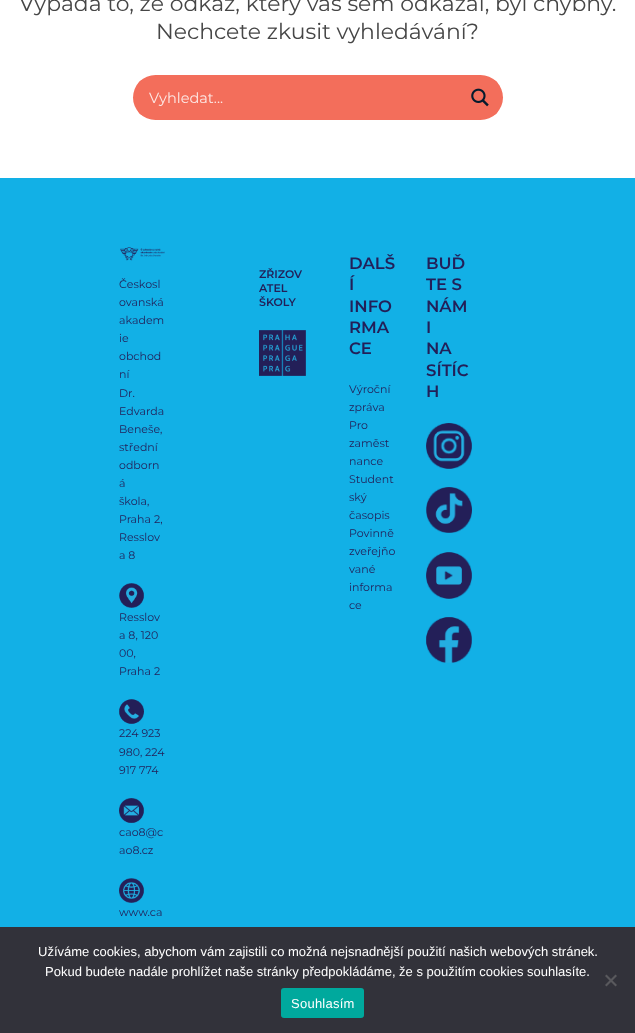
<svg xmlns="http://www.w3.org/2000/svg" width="635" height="1033">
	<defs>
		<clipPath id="clip1"><rect x="133" y="75" width="370" height="45" rx="22.5" /></clipPath>
	</defs>
	<rect width="100%" height="100%" fill="#FFFFFF" />
	<g font-family="Montserrat" font-size="21.9" fill="#464646">
		<text x="19" y="11">Vypadá to, že odkaz, který vás sem odkázal, byl chybný.</text>
		<text x="156" y="39">Nechcete zkusit vyhledávání?</text>
	</g>
	<rect x="133" y="75" width="370" height="45" rx="22.5" fill="#F36E5B" />
	<g clip-path="url(#clip1)">
		<rect x="138" y="80" width="360" height="35" fill="#F36E5B" />
	</g>
	<text x="149" y="103" font-family="Montserrat" font-size="14.5" fill="#FDE9E6">Vyhledat...</text>
	<image x="471" y="88" width="18" height="19" href="assets/img1.png" />
	<rect x="0" y="178" width="635" height="749" fill="#12B0E6" />
	<image x="120" y="247" width="45" height="14" href="assets/img2.png" />
	<g font-family="Montserrat" font-size="11" fill="#231F58">
		<text x="119" y="288">Českosl</text>
		<text x="119" y="306">ovanská</text>
		<text x="119" y="324">akadem</text>
		<text x="119" y="342">ie</text>
		<text x="119" y="360">obchod</text>
		<text x="119" y="378">ní</text>
		<text x="119" y="397">Dr.</text>
		<text x="119" y="415">Edvarda</text>
		<text x="119" y="433">Beneše,</text>
		<text x="119" y="451">střední</text>
		<text x="119" y="469">odborn</text>
		<text x="119" y="487">á</text>
		<text x="119" y="505">škola,</text>
		<text x="119" y="523">Praha 2,</text>
		<text x="119" y="541">Resslov</text>
		<text x="119" y="559">a 8</text>
	</g>
	<image x="119" y="583" width="25" height="25" href="assets/img3.png" />
	<g font-family="Montserrat" font-size="11" fill="#231F58">
		<text x="119" y="621">Resslov</text>
		<text x="119" y="639">a 8, 120</text>
		<text x="119" y="657">00,</text>
		<text x="119" y="675">Praha 2</text>
	</g>
	<image x="119" y="699" width="25" height="25" href="assets/img4.png" />
	<g font-family="Montserrat" font-size="11" fill="#231F58">
		<text x="119" y="737">224 923</text>
		<text x="119" y="756">980, 224</text>
		<text x="119" y="774">917 774</text>
	</g>
	<image x="119" y="798" width="25" height="25" href="assets/img5.png" />
	<g font-family="Montserrat" font-size="11" fill="#231F58">
		<text x="119" y="836">cao8@c</text>
		<text x="119" y="854">ao8.cz</text>
	</g>
	<image x="119" y="878" width="25" height="25" href="assets/img6.png" />
	<text x="119" y="916" font-family="Montserrat" font-size="11" fill="#231F58">www.ca</text>
	<g font-family="Montserrat" font-size="11" font-weight="600" fill="#231F58">
		<text x="259" y="278">ZŘIZOV</text>
		<text x="259" y="292">ATEL</text>
		<text x="259" y="306">ŠKOLY</text>
	</g>
	<image x="259" y="330" width="47" height="46" href="assets/img7.png" />
	<g font-family="Montserrat" font-size="16.5" font-weight="600" fill="#231F58">
		<text x="349" y="269">DALŠ</text>
		<text x="349" y="290">Í</text>
		<text x="349" y="312">INFO</text>
		<text x="349" y="333">RMA</text>
		<text x="349" y="354">CE</text>
	</g>
	<g font-family="Montserrat" font-size="11" fill="#231F58">
		<text x="349" y="393">Výroční</text>
		<text x="349" y="411">zpráva</text>
		<text x="349" y="429">Pro</text>
		<text x="349" y="447">zaměst</text>
		<text x="349" y="465">nance</text>
		<text x="349" y="483">Student</text>
		<text x="349" y="501">ský</text>
		<text x="349" y="519">časopis</text>
		<text x="349" y="537">Povinně</text>
		<text x="349" y="555">zveřejňo</text>
		<text x="349" y="573">vané</text>
		<text x="349" y="591">informa</text>
		<text x="349" y="609">ce</text>
	</g>
	<g font-family="Montserrat" font-size="16.5" font-weight="600" fill="#231F58">
		<text x="426" y="269">BUĎ</text>
		<text x="426" y="290">TE S</text>
		<text x="426" y="312">NÁM</text>
		<text x="426" y="333">I</text>
		<text x="426" y="354">NA</text>
		<text x="426" y="376">SÍTÍC</text>
		<text x="426" y="397">H</text>
	</g>
	<image x="426" y="423" width="46" height="46" href="assets/img8.png" />
	<image x="426" y="487" width="46" height="46" href="assets/img9.png" />
	<image x="426" y="552" width="46" height="47" href="assets/img10.png" />
	<image x="426" y="617" width="46" height="46" href="assets/img11.png" />
	<rect x="0" y="927" width="635" height="106" fill="#32323A" />
	<g font-family="Liberation Sans" font-size="13" fill="#FFFFFF">
		<text x="38" y="956">Užíváme cookies, abychom vám zajistili co možná nejsnadnější použití našich webových stránek.</text>
		<text x="45" y="976">Pokud budete nadále prohlížet naše stránky předpokládáme, že s použitím cookies souhlasíte.</text>
	</g>
	<path d="M615.5 974.5L617 976L606.5 986.5L605 985Z" fill="#59595D" />
	<path d="M605 976L606.5 974.5L617 985L615.5 986.5Z" fill="#59595D" />
	<rect x="281" y="988" width="83" height="30" rx="3" fill="#00A99D" />
	<text x="291" y="1008" font-family="Liberation Sans" font-size="13" letter-spacing="0.25" fill="#FFFFFF">Souhlasím</text>
</svg>
